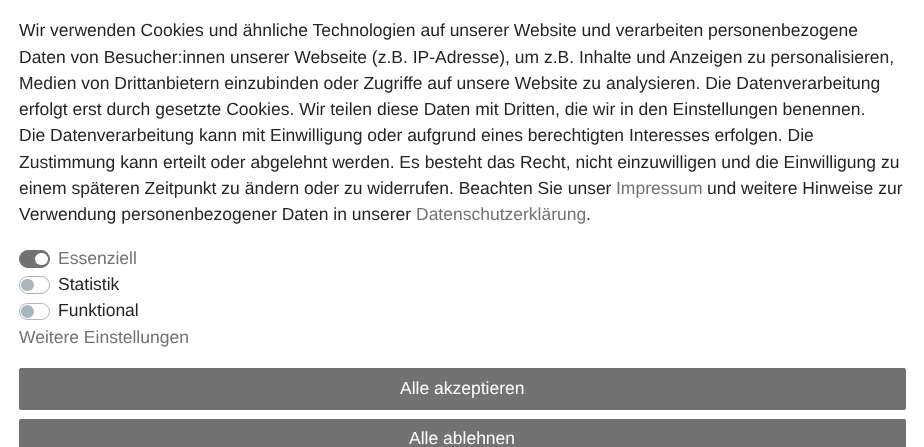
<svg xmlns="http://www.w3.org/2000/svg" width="924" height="447">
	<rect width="100%" height="100%" fill="#FFFFFF" />
	<g font-family="Liberation Sans" font-size="17.5" fill="#212529">
		<text x="19" y="36">Wir verwenden Cookies und ähnliche Technologien auf unserer Website und verarbeiten personenbezogene</text>
		<text x="19" y="63">Daten von Besucher:innen unserer Webseite (z.B. IP-Adresse), um z.B. Inhalte und Anzeigen zu personalisieren,</text>
		<text x="19" y="89">Medien von Drittanbietern einzubinden oder Zugriffe auf unsere Website zu analysieren. Die Datenverarbeitung</text>
		<text x="19" y="115">erfolgt erst durch gesetzte Cookies. Wir teilen diese Daten mit Dritten, die wir in den Einstellungen benennen.</text>
		<text x="19" y="141">Die Datenverarbeitung kann mit Einwilligung oder aufgrund eines berechtigten Interesses erfolgen. Die</text>
		<text x="19" y="168">Zustimmung kann erteilt oder abgelehnt werden. Es besteht das Recht, nicht einzuwilligen und die Einwilligung zu</text>
		<text x="19" y="194">einem späteren Zeitpunkt zu ändern oder zu widerrufen. Beachten Sie unser</text>
	</g>
	<text x="616" y="194" font-family="Liberation Sans" font-size="17.5" fill="#727272">Impressum</text>
	<g font-family="Liberation Sans" font-size="17.5" fill="#212529">
		<text x="707" y="194">und weitere Hinweise zur</text>
		<text x="19" y="220">Verwendung personenbezogener Daten in unserer</text>
	</g>
	<text x="416" y="220" font-family="Liberation Sans" font-size="17.5" fill="#727272">Datenschutzerklärung</text>
	<text x="586" y="220" font-family="Liberation Sans" font-size="17.5" fill="#212529">.</text>
	<rect x="19.5" y="250.5" width="30" height="17" rx="8.5" fill="#727272" stroke="#727272" />
	<text x="58" y="264" font-family="Liberation Sans" font-size="17.5" fill="#727272">Essenziell</text>
	<rect x="35" y="253" width="13" height="12" rx="6" fill="#FFFFFF" />
	<rect x="19.5" y="276.5" width="30" height="17" rx="8.5" fill="none" stroke="#ADB5BD" />
	<text x="58" y="290" font-family="Liberation Sans" font-size="17.5" fill="#212529">Statistik</text>
	<rect x="21" y="279" width="13" height="12" rx="6" fill="#ADB5BD" />
	<rect x="19.5" y="303.5" width="30" height="16" rx="8" fill="none" stroke="#ADB5BD" />
	<text x="58" y="316" font-family="Liberation Sans" font-size="17.5" fill="#212529">Funktional</text>
	<circle cx="27.5" cy="311.5" r="6.5" fill="#ADB5BD" />
	<text x="19" y="343" font-family="Liberation Sans" font-size="17.5" fill="#727272">Weitere Einstellungen</text>
	<rect x="19.5" y="368.5" width="886" height="41" rx="1.5" fill="#727272" stroke="#727272" />
	<text x="400" y="394" font-family="Liberation Sans" font-size="17.5" fill="#FFFFFF">Alle akzeptieren</text>
	<path d="M21 419H904C905 419 906 420 906 421V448H19V421C19 420 20 419 21 419Z" fill="#727272" />
	<rect x="19.5" y="419.5" width="886" height="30" rx="1.5" fill="none" stroke="#727272" />
	<text x="409" y="444" font-family="Liberation Sans" font-size="17.5" fill="#FFFFFF">Alle ablehnen</text>
</svg>
